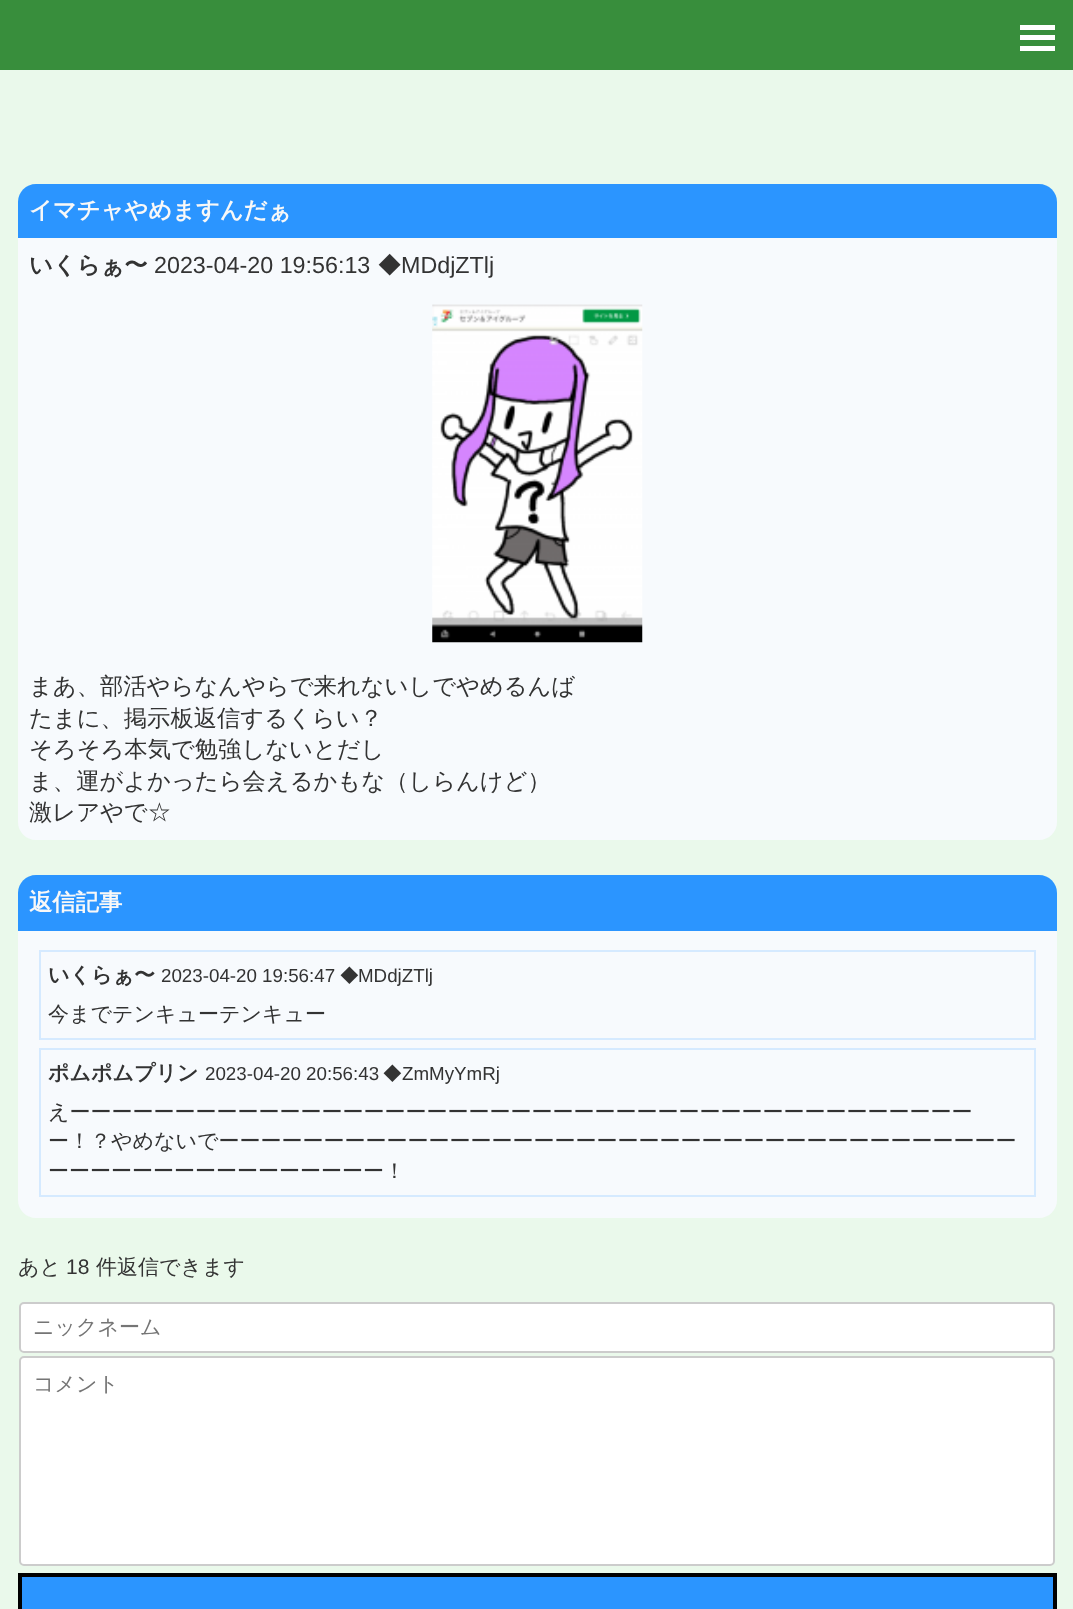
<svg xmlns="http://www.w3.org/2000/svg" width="1073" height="1609">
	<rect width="100%" height="100%" fill="#EAF9EB" />
	<rect x="0" y="0" width="1073" height="70" fill="#388E3C" />
	<rect x="1020" y="25" width="35" height="5" fill="#FFFFFF" />
	<rect x="1020" y="35" width="35" height="5" fill="#FFFFFF" />
	<rect x="1020" y="46" width="35" height="5" fill="#FFFFFF" />
	<path d="M36 184H1039C1049 184 1057 192 1057 202V238H18V202C18 192 26 184 36 184Z" fill="#2B95FF" />
	<text x="29" y="218" font-family="WenQuanYi Zen Hei" font-size="23.3" font-weight="700" fill="#F8F8F8">イマチャやめますんだぁ</text>
	<rect x="18" y="238" width="1039" height="422" fill="#F7FAFD" />
	<text x="29" y="273" font-family="WenQuanYi Zen Hei" font-size="23.3" font-weight="700" fill="#333333">いくらぁ〜</text>
	<text x="154" y="273" font-family="Liberation Sans" font-size="23.3" fill="#333333">2023-04-20 19:56:13</text>
	<text x="378" y="273" font-family="WenQuanYi Zen Hei" font-size="23.3" font-weight="500" fill="#333333">◆</text>
	<text x="401" y="273" font-family="Liberation Sans" font-size="23.3" fill="#333333">MDdjZTlj</text>
	<image x="432" y="304" width="211" height="339" href="assets/img1.png" />
	<path d="M18 660H1057V822C1057 832 1049 840 1039 840H36C26 840 18 832 18 822Z" fill="#F7FAFD" />
	<g font-family="WenQuanYi Zen Hei" font-size="23.3" font-weight="500" fill="#333333">
		<text x="29" y="694">まあ、部活やらなんやらで来れないしでやめるんば</text>
		<text x="29" y="726">たまに、掲示板返信するくらい？</text>
		<text x="29" y="757">そろそろ本気で勉強しないとだし</text>
		<text x="29" y="789">ま、運がよかったら会えるかもな（しらんけど）</text>
		<text x="29" y="820">激レアやで☆</text>
	</g>
	<path d="M36 875H1039C1049 875 1057 883 1057 893V931H18V893C18 883 26 875 36 875Z" fill="#2B95FF" />
	<text x="29" y="910" font-family="WenQuanYi Zen Hei" font-size="23.3" font-weight="700" fill="#F8F8F8">返信記事</text>
	<path d="M18 931H1057V1200C1057 1210 1049 1218 1039 1218H36C26 1218 18 1210 18 1200Z" fill="#F7FAFD" />
	<rect x="40" y="951" width="995" height="88" fill="none" stroke="#D5EAFF" stroke-width="2" />
	<text x="48" y="982" font-family="WenQuanYi Zen Hei" font-size="21" font-weight="700" fill="#333333">いくらぁ〜</text>
	<text x="161" y="982" font-family="Liberation Sans" font-size="18.75" fill="#333333">2023-04-20 19:56:47</text>
	<text x="340" y="982" font-family="WenQuanYi Zen Hei" font-size="18.75" font-weight="500" fill="#333333">◆</text>
	<text x="358" y="982" font-family="Liberation Sans" font-size="18.75" fill="#333333">MDdjZTlj</text>
	<text x="48" y="1021" font-family="WenQuanYi Zen Hei" font-size="21" font-weight="500" fill="#333333">今までテンキューテンキュー</text>
	<rect x="40" y="1049" width="995" height="147" fill="none" stroke="#D5EAFF" stroke-width="2" />
	<text x="48" y="1080" font-family="WenQuanYi Zen Hei" font-size="21" font-weight="700" fill="#333333">ポムポムプリン</text>
	<text x="205" y="1080" font-family="Liberation Sans" font-size="18.75" fill="#333333">2023-04-20 20:56:43</text>
	<text x="383" y="1080" font-family="WenQuanYi Zen Hei" font-size="18.75" font-weight="500" fill="#333333">◆</text>
	<text x="402" y="1080" font-family="Liberation Sans" font-size="18.75" fill="#333333">ZmMyYmRj</text>
	<g font-family="WenQuanYi Zen Hei" font-size="21" font-weight="500" fill="#333333">
		<text x="48" y="1119">えーーーーーーーーーーーーーーーーーーーーーーーーーーーーーーーーーーーーーーーーーーー</text>
		<text x="48" y="1148">ー！？やめないでーーーーーーーーーーーーーーーーーーーーーーーーーーーーーーーーーーーーーー</text>
		<text x="48" y="1178">ーーーーーーーーーーーーーーーー！</text>
		<text x="18" y="1274">あと</text>
	</g>
	<text x="66" y="1274" font-family="Liberation Sans" font-size="21" fill="#333333">18</text>
	<text x="96" y="1274" font-family="WenQuanYi Zen Hei" font-size="21" font-weight="500" fill="#333333">件返信できます</text>
	<rect x="20" y="1303" width="1034" height="49" rx="4" fill="#FFFFFF" stroke="#CCCCCC" stroke-width="2" />
	<text x="33" y="1334" font-family="WenQuanYi Zen Hei" font-size="21" font-weight="500" fill="#757575">ニックネーム</text>
	<rect x="20" y="1357" width="1034" height="208" rx="4" fill="#FFFFFF" stroke="#CCCCCC" stroke-width="2" />
	<text x="33" y="1391" font-family="WenQuanYi Zen Hei" font-size="21" font-weight="500" fill="#757575">コメント</text>
	<rect x="20" y="1575" width="1035" height="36" fill="#2B95FF" stroke="#000000" stroke-width="4" />
</svg>
